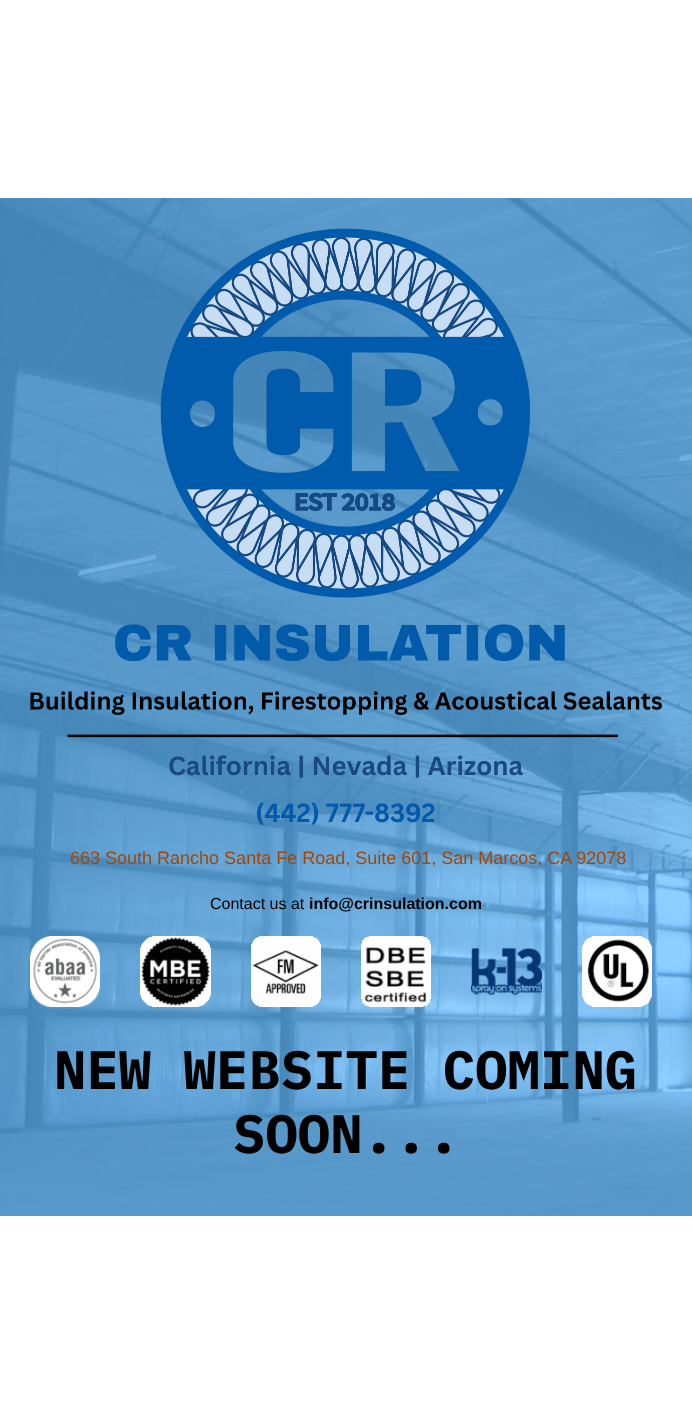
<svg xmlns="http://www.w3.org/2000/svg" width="692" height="1414">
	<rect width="100%" height="100%" fill="#FFFFFF" />
	<image x="0" y="198" width="692" height="1018" href="assets/img1.png" />
	<image x="30" y="228" width="632" height="597" href="assets/img2.png" />
	<text x="70" y="864" font-family="Liberation Sans" font-size="18" fill="#A74602">663 South Rancho Santa Fe Road, Suite 601, San Marcos, CA 92078</text>
	<text x="210" y="909" font-family="Liberation Sans" font-size="16" fill="#000000">Contact us at</text>
	<text x="309" y="909" font-family="Liberation Sans" font-size="16" font-weight="700" fill="#000000">info@crinsulation.com</text>
	<image x="30" y="936" width="70" height="71" href="assets/img3.png" />
	<image x="140" y="936" width="71" height="71" href="assets/img4.png" />
	<image x="251" y="936" width="70" height="71" href="assets/img5.png" />
	<image x="361" y="936" width="70" height="71" href="assets/img6.png" />
	<image x="471" y="947" width="71" height="49" href="assets/img7.png" />
	<image x="582" y="936" width="70" height="71" href="assets/img8.png" />
	<g font-family="IBM Plex Mono" font-size="54" font-weight="700" fill="#000000">
		<text x="54" y="1089">NEW WEBSITE COMING</text>
		<text x="233" y="1153">SOON...</text>
	</g>
</svg>
